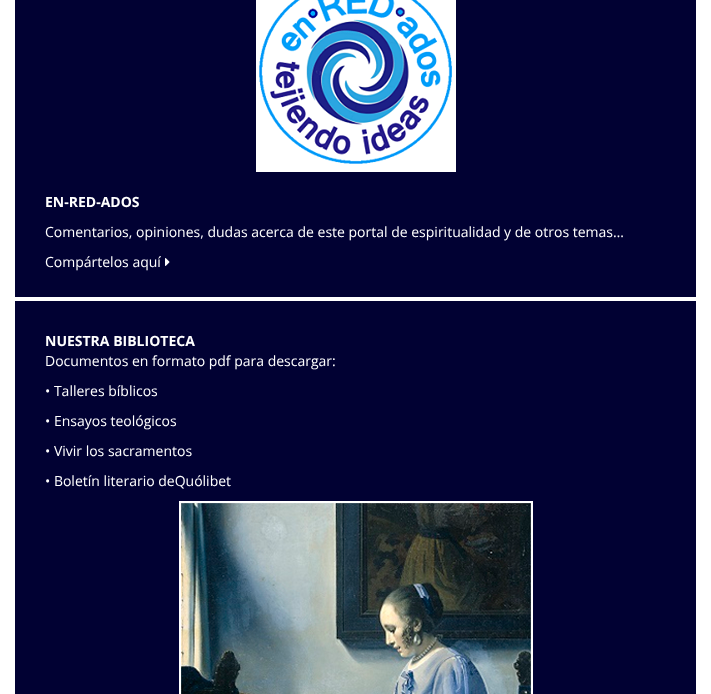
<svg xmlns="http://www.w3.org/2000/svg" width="711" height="694">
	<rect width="100%" height="100%" fill="#FFFFFF" />
	<rect x="15" y="0" width="681" height="694" fill="#010133" />
	<rect x="15" y="297" width="681" height="4" fill="#FFFFFF" />
	<image x="256" y="0" width="200" height="172" href="assets/img1.png" />
	<text x="45" y="207" font-family="Open Sans" font-size="14" font-weight="700" fill="#FFFFFF">EN-RED-ADOS</text>
	<g font-family="Open Sans" font-size="14" fill="#FFFFFF">
		<text x="45" y="237">Comentarios, opiniones, dudas acerca de este portal de espiritualidad y de otros temas…</text>
		<text x="45" y="267">Compártelos aquí</text>
	</g>
	<image x="165" y="258" width="5" height="8" href="assets/img2.png" />
	<text x="45" y="346" font-family="Open Sans" font-size="14" font-weight="700" fill="#FFFFFF">NUESTRA BIBLIOTECA</text>
	<g font-family="Open Sans" font-size="14" fill="#FFFFFF">
		<text x="45" y="366">Documentos en formato pdf para descargar:</text>
		<text x="45" y="396">• Talleres bíblicos</text>
		<text x="45" y="426">• Ensayos teológicos</text>
		<text x="45" y="456">• Vivir los sacramentos</text>
		<text x="45" y="486">• Boletín literario deQuólibet</text>
	</g>
	<image x="179" y="501" width="354" height="193" href="assets/img3.png" />
</svg>
